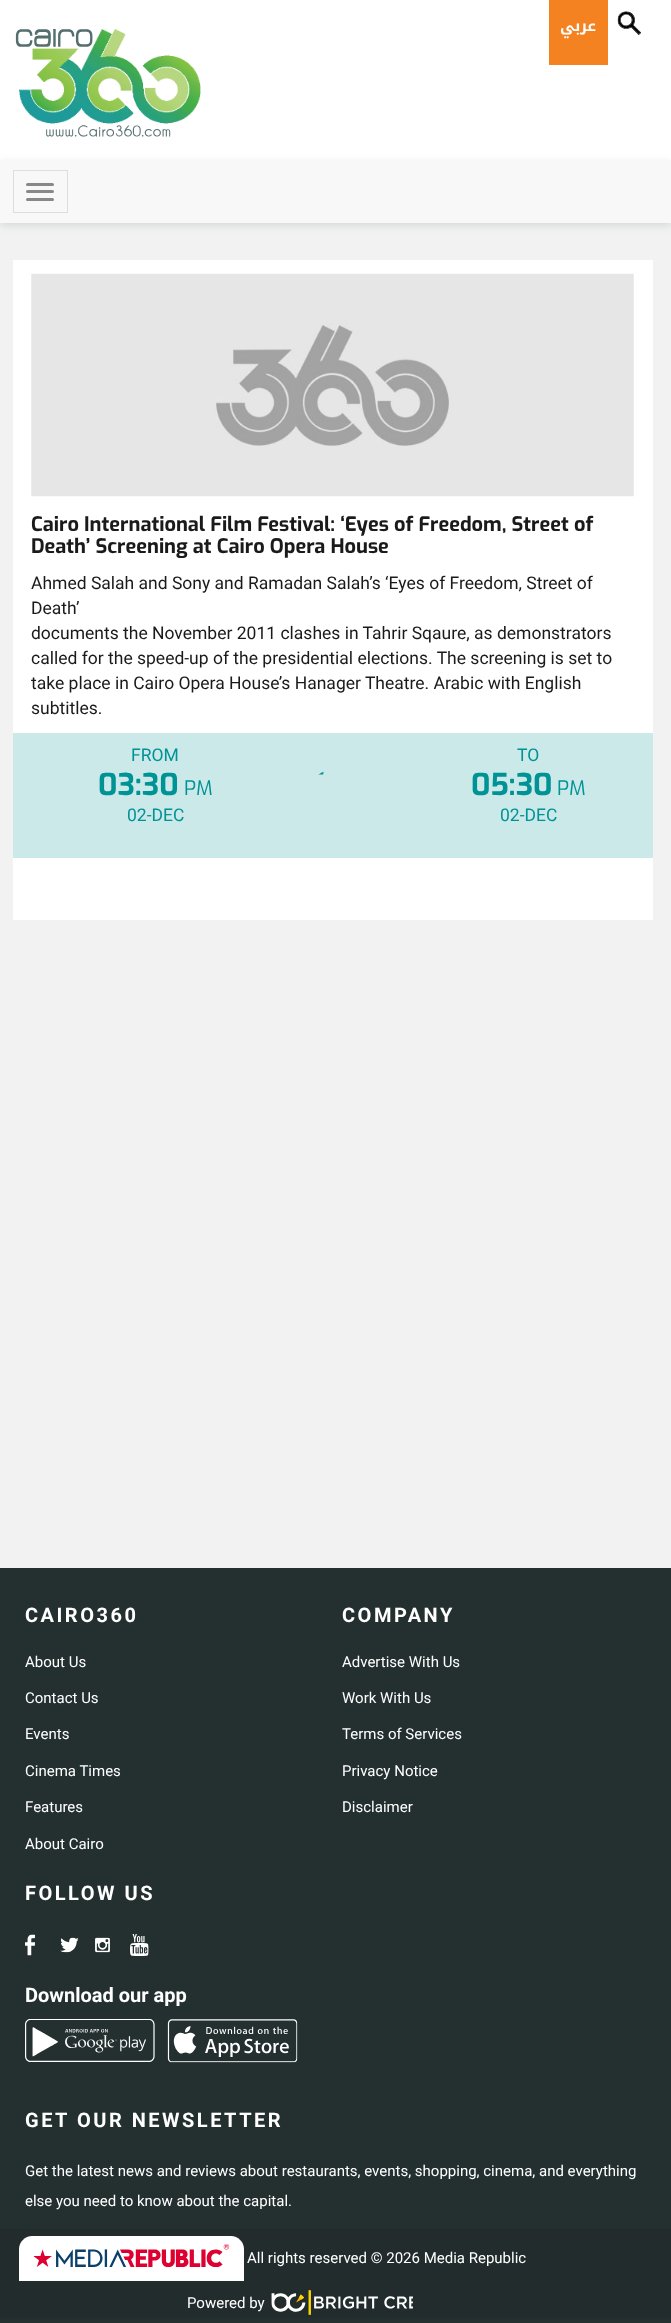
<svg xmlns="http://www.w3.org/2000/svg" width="671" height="2323">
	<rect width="100%" height="100%" fill="#F2F2F2" />
	<rect x="0" y="0" width="671" height="160" fill="#FFFFFF" />
	<image x="15" y="29" width="186" height="108" href="assets/img1.png" />
	<rect x="549" y="0" width="59" height="65" fill="#F58220" />
	<text x="596" y="31" font-family="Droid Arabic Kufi" font-size="15" font-weight="700" direction="rtl" fill="#FFFFFF">عربي</text>
	<image x="617" y="11" width="24" height="24" href="assets/img2.png" />
	<rect x="0" y="163" width="671" height="62" fill="#55706F" fill-opacity="0.21" filter="blur(4px)" />
	<rect x="0" y="160" width="671" height="63" fill="#F8F8F8" />
	<rect x="13.5" y="170.5" width="54" height="42" fill="none" stroke="#DDDDDD" />
	<rect x="26" y="183" width="28" height="3" rx="1.5" fill="#888888" />
	<rect x="26" y="190" width="28" height="3" rx="1.5" fill="#888888" />
	<rect x="26" y="198" width="28" height="3" rx="1.5" fill="#888888" />
	<rect x="13" y="260" width="640" height="473" fill="#FFFFFF" />
	<image x="31" y="273" width="603" height="224" href="assets/img3.png" />
	<g font-family="Exo" font-size="20" font-weight="700" fill="#1A1A1A">
		<text x="31" y="531">Cairo International Film Festival: ‘Eyes of Freedom, Street of</text>
		<text x="31" y="553">Death’ Screening at Cairo Opera House</text>
	</g>
	<g font-family="Roboto" font-size="17.5" fill="#1A1A1A">
		<text x="31" y="589">Ahmed Salah and Sony and Ramadan Salah’s ‘Eyes of Freedom, Street of</text>
		<text x="31" y="614">Death’</text>
		<text x="31" y="639">documents the November 2011 clashes in Tahrir Sqaure, as demonstrators</text>
		<text x="31" y="664">called for the speed-up of the presidential elections. The screening is set to</text>
		<text x="31" y="689">take place in Cairo Opera House’s Hanager Theatre. Arabic with English</text>
		<text x="31" y="714">subtitles.</text>
	</g>
	<rect x="13" y="858" width="640" height="62" fill="#FFFFFF" />
	<rect x="13" y="733" width="640" height="125" fill="#CCE9EA" />
	<text x="131" y="761" font-family="Roboto" font-size="17.5" fill="#009395">FROM</text>
	<text x="98" y="795" font-family="Exo" font-size="30" font-weight="700" fill="#009395">03:30</text>
	<text x="184" y="795" font-family="Exo" font-size="20" fill="#009395">PM</text>
	<text x="127" y="821" font-family="Roboto" font-size="17.5" fill="#009395">02-DEC</text>
	<image x="318" y="771" width="6" height="4" href="assets/img4.png" />
	<text x="517" y="761" font-family="Roboto" font-size="17.5" fill="#009395">TO</text>
	<text x="471" y="795" font-family="Exo" font-size="30" font-weight="700" fill="#009395">05:30</text>
	<text x="557" y="795" font-family="Exo" font-size="20" fill="#009395">PM</text>
	<text x="500" y="821" font-family="Roboto" font-size="17.5" fill="#009395">02-DEC</text>
	<rect x="0" y="1568" width="671" height="755" fill="#242F2F" />
	<text x="25" y="1622" font-family="Roboto" font-size="20" font-weight="700" letter-spacing="2.5" fill="#FFFFFF">CAIRO360</text>
	<g font-family="Roboto" font-size="15" fill="#FFFFFF">
		<text x="25" y="1667">About Us</text>
		<text x="25" y="1703">Contact Us</text>
		<text x="25" y="1739">Events</text>
		<text x="25" y="1776">Cinema Times</text>
		<text x="25" y="1812">Features</text>
		<text x="25" y="1849">About Cairo</text>
	</g>
	<text x="342" y="1622" font-family="Roboto" font-size="20" font-weight="700" letter-spacing="2.5" fill="#FFFFFF">COMPANY</text>
	<g font-family="Roboto" font-size="15" fill="#FFFFFF">
		<text x="342" y="1667">Advertise With Us</text>
		<text x="342" y="1703">Work With Us</text>
		<text x="342" y="1739">Terms of Services</text>
		<text x="342" y="1776">Privacy Notice</text>
		<text x="342" y="1812">Disclaimer</text>
	</g>
	<text x="25" y="1900" font-family="Roboto" font-size="20" font-weight="700" letter-spacing="2.5" fill="#FFFFFF">FOLLOW US</text>
	<image x="25" y="1934" width="10" height="22" href="assets/img5.png" />
	<image x="60" y="1937" width="19" height="16" href="assets/img6.png" />
	<image x="95" y="1937" width="15" height="16" href="assets/img7.png" />
	<image x="130" y="1934" width="19" height="22" href="assets/img8.png" />
	<text x="25" y="2002" font-family="Roboto" font-size="20" font-weight="700" fill="#FFFFFF">Download our app</text>
	<image x="25" y="2019" width="130" height="43" href="assets/img9.png" />
	<image x="167" y="2019" width="131" height="44" href="assets/img10.png" />
	<text x="25" y="2127" font-family="Roboto" font-size="20" font-weight="700" letter-spacing="2.5" fill="#FFFFFF">GET OUR NEWSLETTER</text>
	<g font-family="Roboto" font-size="15" fill="#FFFFFF">
		<text x="25" y="2176">Get the latest news and reviews about restaurants, events, shopping, cinema, and everything</text>
		<text x="25" y="2206">else you need to know about the capital.</text>
	</g>
	<rect x="0" y="2230" width="671" height="88" fill="#222C2C" />
	<rect x="0" y="2229" width="671" height="1" fill="#212929" />
	<path d="M32 2236H231C238 2236 244 2242 244 2249V2281H19V2249C19 2242 25 2236 32 2236Z" fill="#FFFFFF" />
	<image x="33" y="2244" width="197" height="23" href="assets/img11.png" />
	<g font-family="Roboto" font-size="15" fill="#FFFFFF">
		<text x="247" y="2263">All rights reserved © 2026 Media Republic</text>
		<text x="187" y="2308">Powered by</text>
	</g>
	<image x="271" y="2290" width="142" height="25" href="assets/img12.png" />
</svg>
